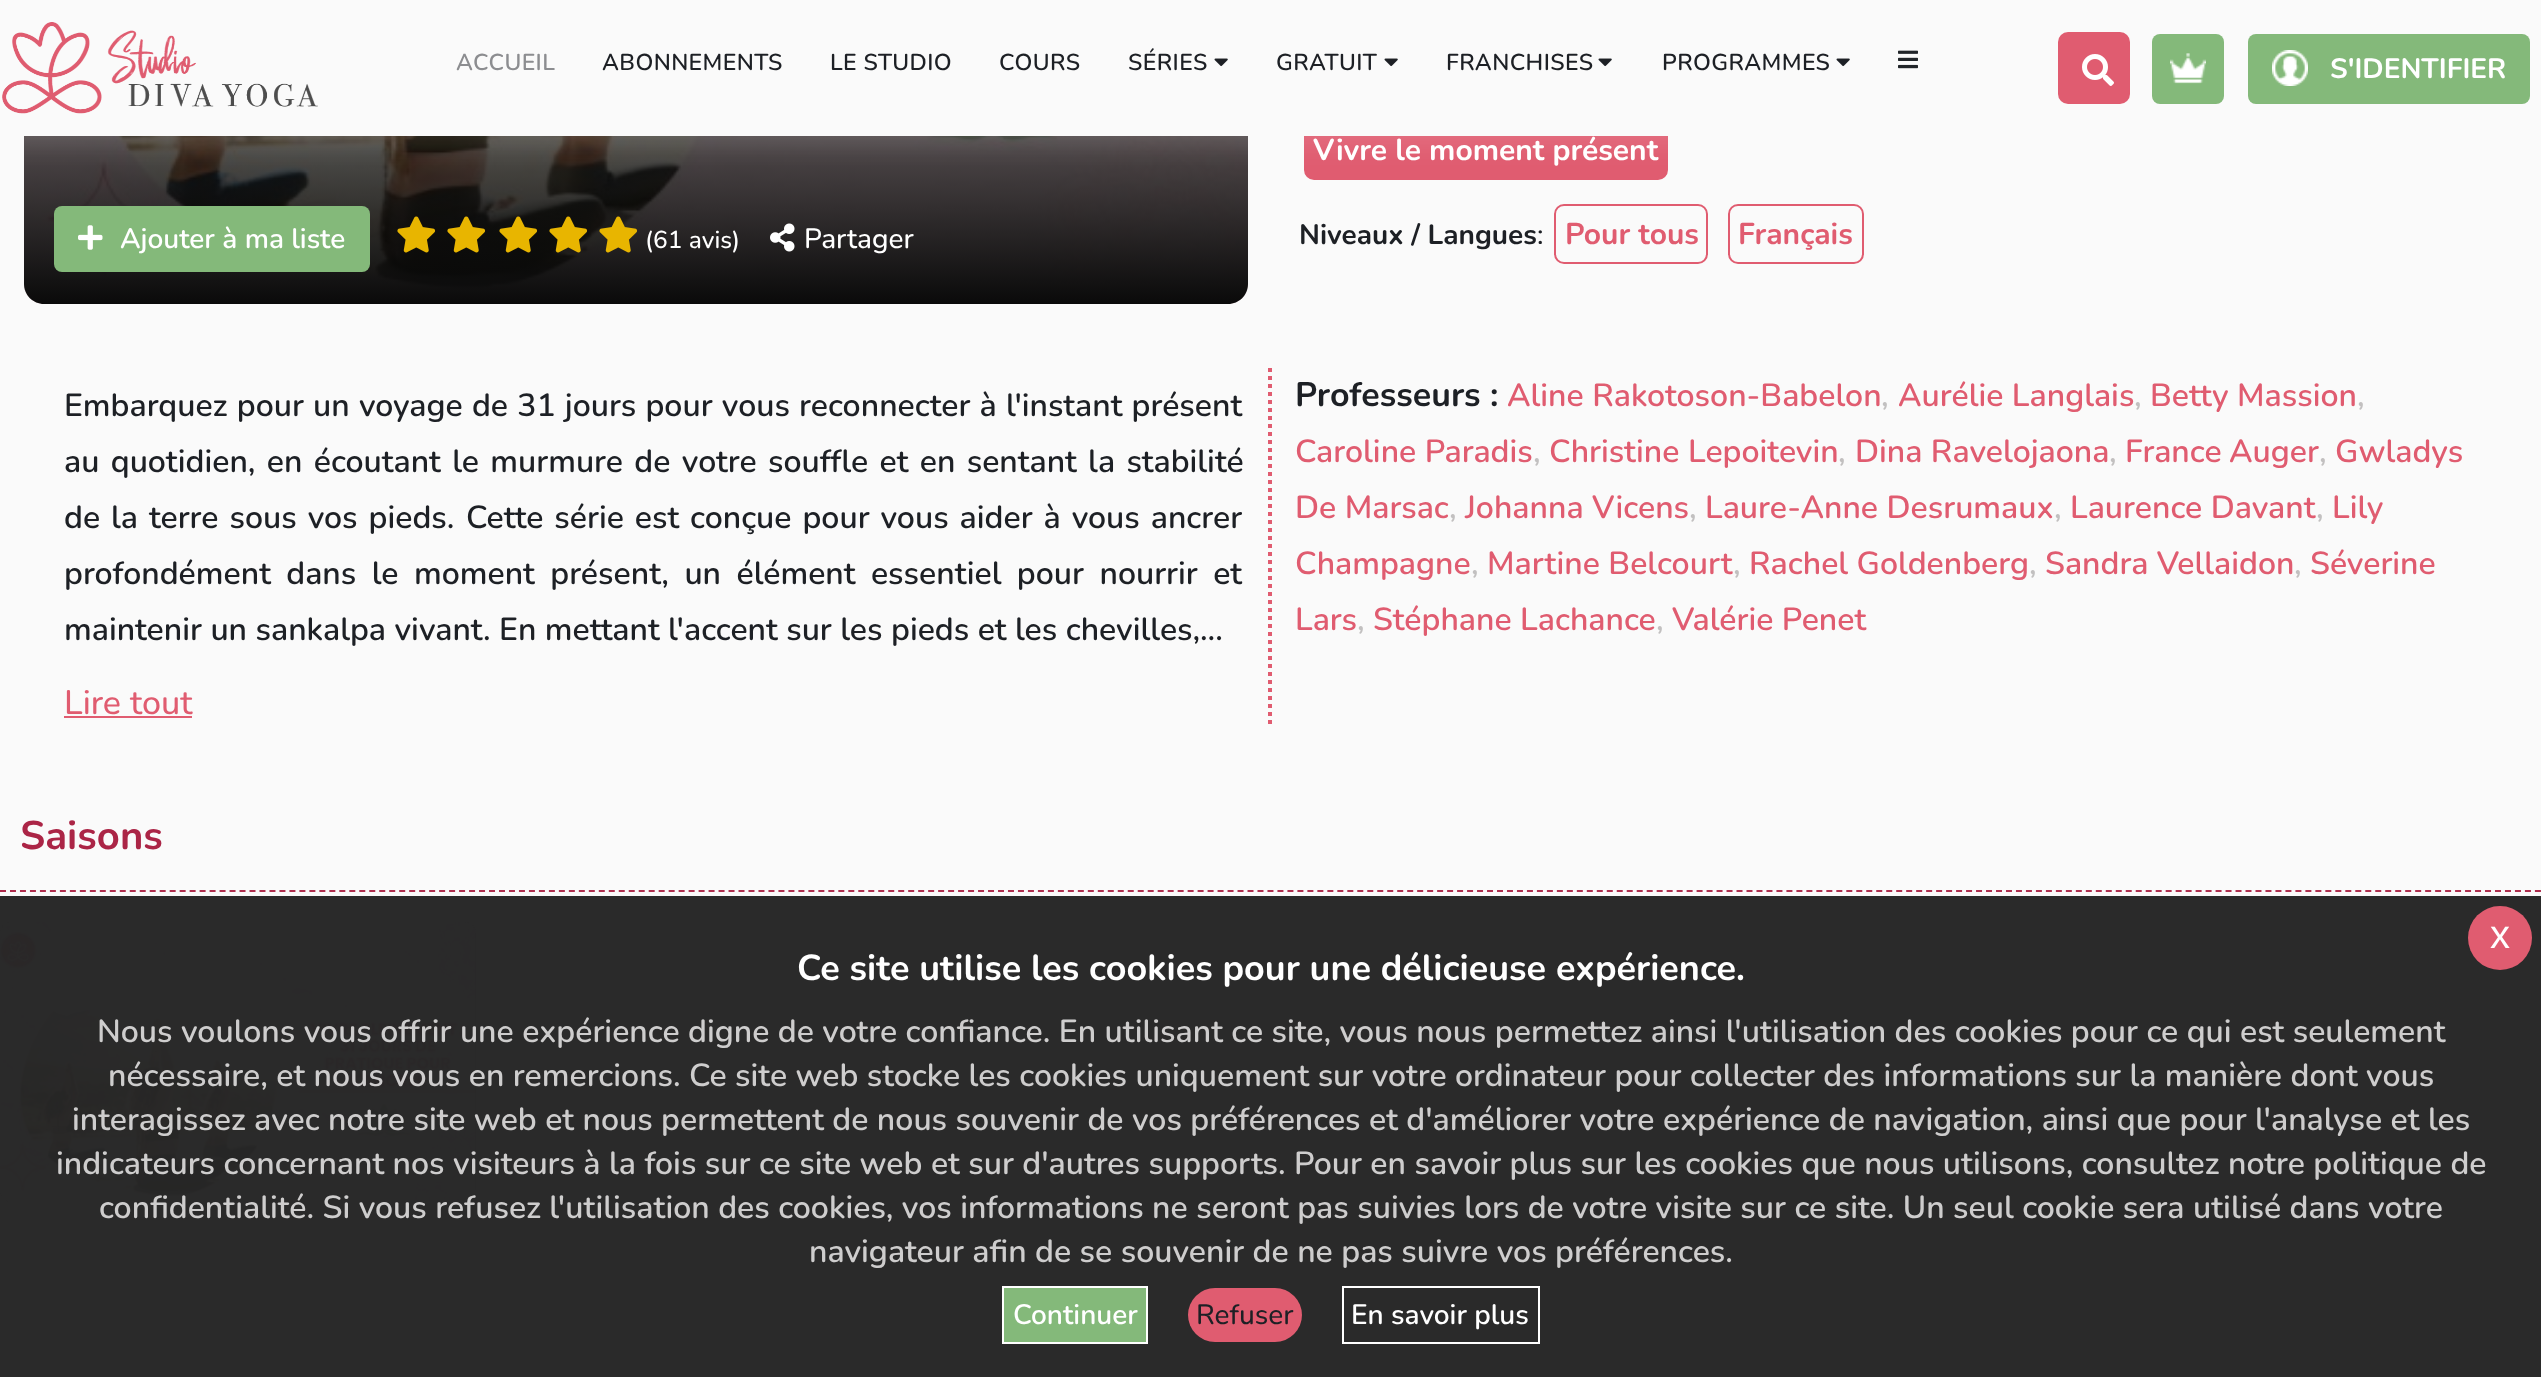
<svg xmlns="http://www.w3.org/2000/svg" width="2541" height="1377">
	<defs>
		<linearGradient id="g1" gradientUnits="userSpaceOnUse" x1="636" y1="-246" x2="636" y2="304"><stop offset="0" stop-color="#0A0A0A" stop-opacity="0" /><stop offset="1" stop-color="#0A0A0A" /></linearGradient>
		<clipPath id="clip1"><rect x="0" y="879" width="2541" height="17" /></clipPath>
	</defs>
	<rect width="100%" height="100%" fill="#FAFAFA" />
	<rect x="0" y="896" width="2541" height="481" fill="#2A2A2A" />
	<image x="24" y="136" width="1224" height="168" href="assets/img7.png" />
	<path d="M24-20H1248V284C1248 295 1239 304 1228 304H44C33 304 24 295 24 284Z" fill="url(#g1)" />
	<rect x="1305" y="121" width="362" height="58" rx="9" fill="#E05C70" stroke="#E05C70" stroke-width="2" />
	<rect x="0" y="4" width="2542" height="136" fill="#FFFFFF" fill-opacity="0.15" filter="blur(15px)" />
	<rect x="24" y="0" width="1644" height="136" fill="#FAFAFA" />
	<image x="2" y="22" width="316" height="92" href="assets/img1.png" />
	<text x="456" y="70" font-family="Nunito" font-size="23" font-weight="600" letter-spacing="0.4" fill="#8C8D90">ACCUEIL</text>
	<g font-family="Nunito" font-size="23" font-weight="600" letter-spacing="0.4" fill="#1D2025">
		<text x="602" y="70">ABONNEMENTS</text>
		<text x="830" y="70">LE STUDIO</text>
		<text x="999" y="70">COURS</text>
		<text x="1128" y="70">SÉRIES</text>
	</g>
	<image x="1214" y="58" width="14" height="9" href="assets/img2.png" />
	<text x="1276" y="70" font-family="Nunito" font-size="23" font-weight="600" letter-spacing="0.4" fill="#1D2025">GRATUIT</text>
	<image x="1384" y="58" width="14" height="9" href="assets/img2.png" />
	<text x="1446" y="70" font-family="Nunito" font-size="23" font-weight="600" letter-spacing="0.4" fill="#1D2025">FRANCHISES</text>
	<image x="1598" y="58" width="14" height="9" href="assets/img2.png" />
	<text x="1662" y="70" font-family="Nunito" font-size="23" font-weight="600" letter-spacing="0.4" fill="#1D2025">PROGRAMMES</text>
	<image x="1836" y="58" width="14" height="9" href="assets/img2.png" />
	<image x="1898" y="50" width="20" height="19" href="assets/img3.png" />
	<rect x="2058" y="32" width="72" height="72" rx="10" fill="#E05C70" />
	<image x="2082" y="54" width="32" height="32" href="assets/img4.png" />
	<rect x="2152" y="34" width="72" height="70" rx="8" fill="#84B97A" />
	<image x="2170" y="53" width="36" height="31" href="assets/img5.png" />
	<rect x="2248" y="34" width="282" height="70" rx="8" fill="#84B97A" />
	<image x="2272" y="50" width="36" height="36" href="assets/img6.png" />
	<text x="2330" y="78" font-family="Nunito" font-size="28" font-weight="700" fill="#FFFFFF">S'IDENTIFIER</text>
	<rect x="54" y="206" width="316" height="66" rx="8" fill="#84B97A" />
	<image x="78" y="225" width="25" height="25" href="assets/img8.png" />
	<text x="120" y="248" font-family="Nunito" font-size="28" font-weight="600" fill="#FFFFFF">Ajouter à ma liste</text>
	<image x="397" y="216" width="39" height="37" href="assets/img9.png" />
	<image x="447" y="216" width="39" height="37" href="assets/img10.png" />
	<image x="499" y="216" width="39" height="37" href="assets/img11.png" />
	<image x="549" y="216" width="39" height="37" href="assets/img12.png" />
	<image x="599" y="216" width="39" height="37" href="assets/img13.png" />
	<text x="645" y="248" font-family="Nunito" font-size="24.5" font-weight="500" fill="#FFFFFF">(61 avis)</text>
	<image x="770" y="223" width="25" height="29" href="assets/img14.png" />
	<text x="804" y="248" font-family="Nunito" font-size="28" font-weight="500" fill="#FFFFFF">Partager</text>
	<text x="1313" y="160" font-family="Nunito" font-size="30" font-weight="700" fill="#FFFFFF">Vivre le moment présent</text>
	<text x="1299" y="244" font-family="Nunito" font-size="28" font-weight="700" fill="#1D2025">Niveaux / Langues</text>
	<text x="1537" y="244" font-family="Nunito" font-size="28" font-weight="500" fill="#1D2025">:</text>
	<rect x="1555" y="205" width="152" height="58" rx="9" fill="none" stroke="#E05C70" stroke-width="2" />
	<text x="1565" y="244" font-family="Nunito" font-size="30" font-weight="700" fill="#E05C70">Pour tous</text>
	<rect x="1729" y="205" width="134" height="58" rx="9" fill="none" stroke="#E05C70" stroke-width="2" />
	<text x="1738" y="244" font-family="Nunito" font-size="30" font-weight="700" fill="#E05C70">Français</text>
	<path d="M1270 368V728" fill="none" stroke="#E05C70" stroke-width="4" stroke-dasharray="4 4" />
	<g font-family="Nunito" font-size="32" font-weight="600" fill="#1D2025">
		<text x="64" y="416" word-spacing="0.75">Embarquez pour un voyage de 31 jours pour vous reconnecter à l'instant présent</text>
		<text x="64" y="472" word-spacing="2.9">au quotidien, en écoutant le murmure de votre souffle et en sentant la stabilité</text>
		<text x="64" y="528" word-spacing="2.5">de la terre sous vos pieds.</text>
		<text x="466" y="528" word-spacing="2.5">Cette série est conçue pour vous aider à vous ancrer</text>
		<text x="64" y="584" word-spacing="7">profondément dans le moment présent, un élément essentiel pour nourrir et</text>
		<text x="64" y="640">maintenir un sankalpa vivant. En mettant l'accent sur les pieds et les chevilles,...</text>
	</g>
	<text x="64" y="714" font-family="Nunito" font-size="34" font-weight="500" fill="#E05C70">Lire tout</text>
	<rect x="64" y="716" width="128" height="2" fill="#E05C70" />
	<text x="1295" y="406" font-family="Nunito" font-size="34" font-weight="700" fill="#1D2025">Professeurs :</text>
	<text x="1507" y="406" font-family="Nunito" font-size="32" font-weight="600" fill="#E05C70">Aline Rakotoson-Babelon</text>
	<text x="1881" y="406" font-family="Nunito" font-size="32" font-weight="600" fill="#C2C0C0">,</text>
	<text x="1898" y="406" font-family="Nunito" font-size="32" font-weight="600" fill="#E05C70">Aurélie Langlais</text>
	<text x="2134" y="406" font-family="Nunito" font-size="32" font-weight="600" fill="#C2C0C0">,</text>
	<text x="2150" y="406" font-family="Nunito" font-size="32" font-weight="600" fill="#E05C70">Betty Massion</text>
	<text x="2357" y="406" font-family="Nunito" font-size="32" font-weight="600" fill="#C2C0C0">,</text>
	<text x="1295" y="462" font-family="Nunito" font-size="32" font-weight="600" fill="#E05C70">Caroline Paradis</text>
	<text x="1533" y="462" font-family="Nunito" font-size="32" font-weight="600" fill="#C2C0C0">,</text>
	<text x="1549" y="462" font-family="Nunito" font-size="32" font-weight="600" fill="#E05C70">Christine Lepoitevin</text>
	<text x="1838" y="462" font-family="Nunito" font-size="32" font-weight="600" fill="#C2C0C0">,</text>
	<text x="1855" y="462" font-family="Nunito" font-size="32" font-weight="600" fill="#E05C70">Dina Ravelojaona</text>
	<text x="2109" y="462" font-family="Nunito" font-size="32" font-weight="600" fill="#C2C0C0">,</text>
	<text x="2125" y="462" word-spacing="-1" font-family="Nunito" font-size="32" font-weight="600" fill="#E05C70">France Auger</text>
	<text x="2319" y="462" font-family="Nunito" font-size="32" font-weight="600" fill="#C2C0C0">,</text>
	<g font-family="Nunito" font-size="32" font-weight="600" fill="#E05C70">
		<text x="2335" y="462">Gwladys</text>
		<text x="1295" y="518">De Marsac</text>
	</g>
	<text x="1449" y="518" font-family="Nunito" font-size="32" font-weight="600" fill="#C2C0C0">,</text>
	<text x="1465" y="518" font-family="Nunito" font-size="32" font-weight="600" fill="#E05C70">Johanna Vicens</text>
	<text x="1689" y="518" font-family="Nunito" font-size="32" font-weight="600" fill="#C2C0C0">,</text>
	<text x="1705" y="518" font-family="Nunito" font-size="32" font-weight="600" fill="#E05C70">Laure-Anne Desrumaux</text>
	<text x="2054" y="518" font-family="Nunito" font-size="32" font-weight="600" fill="#C2C0C0">,</text>
	<text x="2070" y="518" font-family="Nunito" font-size="32" font-weight="600" fill="#E05C70">Laurence Davant</text>
	<text x="2316" y="518" font-family="Nunito" font-size="32" font-weight="600" fill="#C2C0C0">,</text>
	<g font-family="Nunito" font-size="32" font-weight="600" fill="#E05C70">
		<text x="2332" y="518">Lily</text>
		<text x="1295" y="574">Champagne</text>
	</g>
	<text x="1471" y="574" font-family="Nunito" font-size="32" font-weight="600" fill="#C2C0C0">,</text>
	<text x="1487" y="574" font-family="Nunito" font-size="32" font-weight="600" fill="#E05C70">Martine Belcourt</text>
	<text x="1733" y="574" font-family="Nunito" font-size="32" font-weight="600" fill="#C2C0C0">,</text>
	<text x="1749" y="574" font-family="Nunito" font-size="32" font-weight="600" fill="#E05C70">Rachel Goldenberg</text>
	<text x="2029" y="574" font-family="Nunito" font-size="32" font-weight="600" fill="#C2C0C0">,</text>
	<text x="2045" y="574" font-family="Nunito" font-size="32" font-weight="600" fill="#E05C70">Sandra Vellaidon</text>
	<text x="2294" y="574" font-family="Nunito" font-size="32" font-weight="600" fill="#C2C0C0">,</text>
	<g font-family="Nunito" font-size="32" font-weight="600" fill="#E05C70">
		<text x="2310" y="574">Séverine</text>
		<text x="1295" y="630">Lars</text>
	</g>
	<text x="1357" y="630" font-family="Nunito" font-size="32" font-weight="600" fill="#C2C0C0">,</text>
	<text x="1373" y="630" font-family="Nunito" font-size="32" font-weight="600" fill="#E05C70">Stéphane Lachance</text>
	<text x="1656" y="630" font-family="Nunito" font-size="32" font-weight="600" fill="#C2C0C0">,</text>
	<text x="1672" y="630" font-family="Nunito" font-size="32" font-weight="600" fill="#E05C70">Valérie Penet</text>
	<path d="M0 891H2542" fill="none" stroke="#AB2546" stroke-width="2" stroke-dasharray="6 3.98" />
	<text x="20" y="849" font-family="Nunito" font-size="40" font-weight="700" fill="#AB2546">Saisons</text>
	<image x="0" y="922" width="476" height="280" href="assets/img15.png" />
	<g clip-path="url(#clip1)">
		<rect x="0" y="896" width="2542" height="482" fill="#FFFFFF" fill-opacity="0.12" filter="blur(18px)" />
	</g>
	<circle cx="2500" cy="938" r="32" fill="#E05C70" />
	<text x="2490" y="948" font-family="Liberation Sans" font-size="40" fill="#FFFFFF">x</text>
	<text x="797" y="980" font-family="Nunito" font-size="36" font-weight="700" fill="#FFFFFF">Ce site utilise les cookies pour une délicieuse expérience.</text>
	<g font-family="Nunito" font-size="32" font-weight="600" fill="#CECDCD">
		<text x="97" y="1042">Nous voulons vous offrir une expérience digne de votre confiance. En utilisant ce site, vous nous permettez ainsi l'utilisation des cookies pour ce qui est seulement</text>
		<text x="108" y="1086">nécessaire, et nous vous en remercions. Ce site web stocke les cookies uniquement sur votre ordinateur pour collecter des informations sur la manière dont vous</text>
		<text x="72" y="1130">interagissez avec notre site web et nous permettent de nous souvenir de vos préférences et d'améliorer votre expérience de navigation, ainsi que pour l'analyse et les</text>
		<text x="56" y="1174">indicateurs concernant nos visiteurs à la fois sur ce site web et sur d'autres supports. Pour en savoir plus sur les cookies que nous utilisons, consultez notre politique de</text>
		<text x="99" y="1218">confidentialité. Si vous refusez l'utilisation des cookies, vos informations ne seront pas suivies lors de votre visite sur ce site. Un seul cookie sera utilisé dans votre</text>
		<text x="809" y="1262">navigateur afin de se souvenir de ne pas suivre vos préférences.</text>
	</g>
	<rect x="1003" y="1287" width="144" height="56" fill="#84B97A" stroke="#FFFFFF" stroke-width="2" />
	<text x="1013" y="1324" font-family="Nunito" font-size="28" font-weight="600" fill="#FFFFFF">Continuer</text>
	<rect x="1188" y="1288" width="114" height="54" rx="27" fill="#E05C70" />
	<text x="1196" y="1324" font-family="Nunito" font-size="28" font-weight="500" fill="#1D2025">Refuser</text>
	<rect x="1343" y="1287" width="196" height="56" fill="none" stroke="#FFFFFF" stroke-width="2" />
	<text x="1351" y="1324" font-family="Nunito" font-size="28" font-weight="600" fill="#FFFFFF">En savoir plus</text>
</svg>
